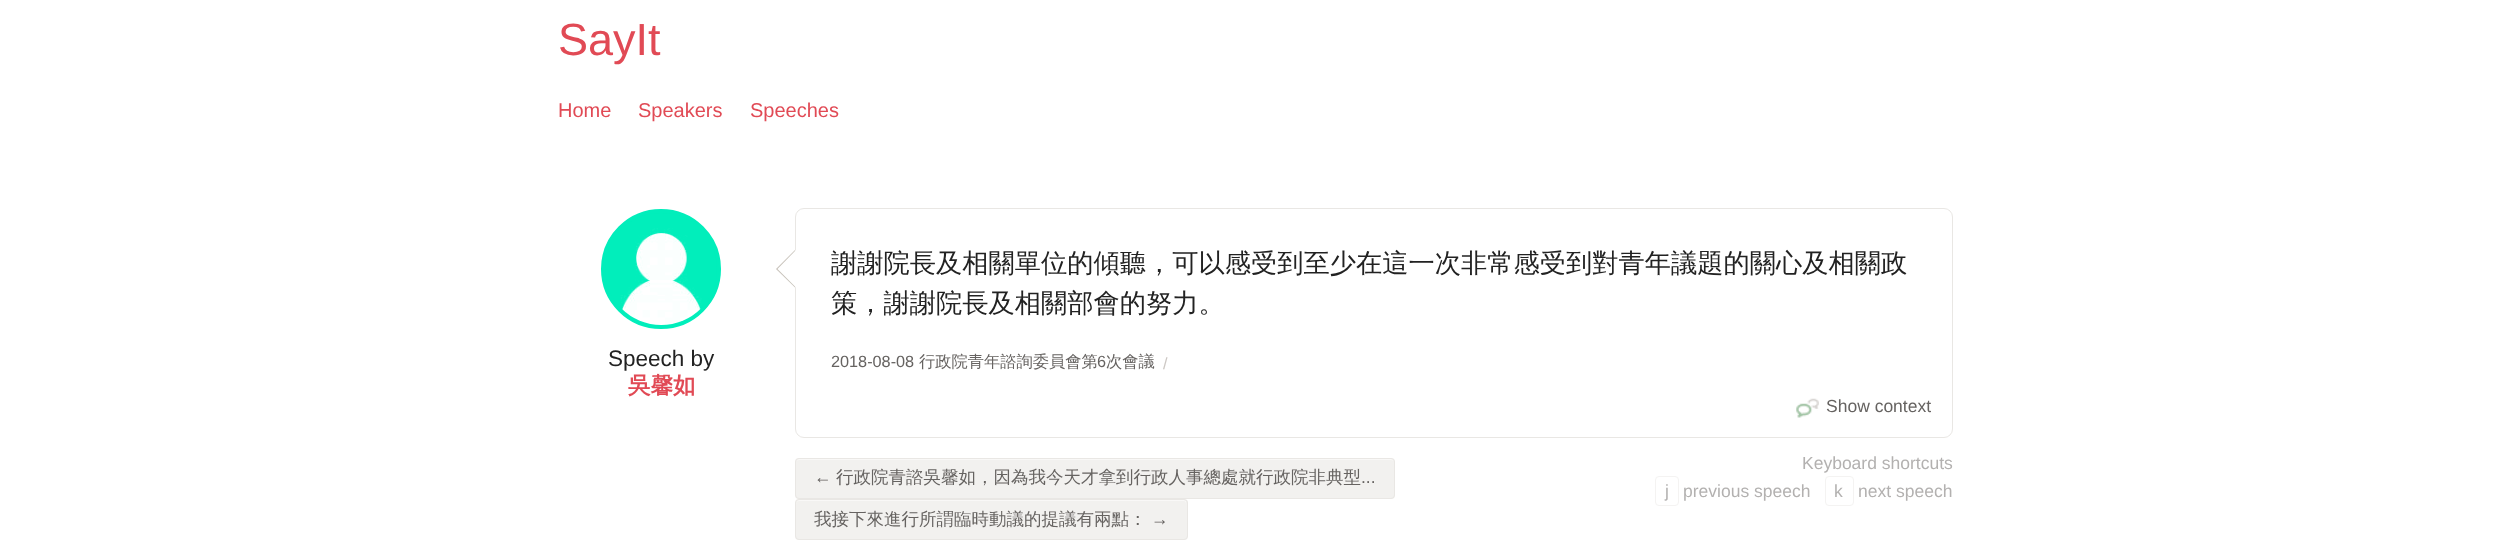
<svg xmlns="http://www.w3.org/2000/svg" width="2510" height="557">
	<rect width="100%" height="100%" fill="#FFFFFF" />
	<text x="558" y="55" font-family="Liberation Sans" font-size="45" fill="#E14A55">SayIt</text>
	<g font-family="Liberation Sans" font-size="20" fill="#E14A55">
		<text x="558" y="117">Home</text>
		<text x="638" y="117">Speakers</text>
		<text x="750" y="117">Speeches</text>
	</g>
	<rect x="795.5" y="208.5" width="1157" height="229" rx="8.5" fill="none" stroke="#E9E7E4" />
	<circle cx="661" cy="269" r="58" fill="#01EEBB" stroke="#01EEBB" stroke-width="4" />
	<image x="620" y="228" width="82" height="97" href="assets/img1.png" />
	<path d="M795 250V287.5L776 269Z" fill="#C7C2BA" />
	<g font-family="WenQuanYi Zen Hei" font-size="26.25" font-weight="500" fill="#222222">
		<text x="831" y="272">謝謝院長及相關單位的傾聽，可以感受到至少在這一次非常感受到對青年議題的關心及相關政</text>
		<text x="831" y="312">策，謝謝院長及相關部會的努力。</text>
	</g>
	<path d="M796 250V287.5L777.5 269Z" fill="#FFFFFF" />
	<text x="608" y="366" font-family="Liberation Sans" font-size="22.5" fill="#222222">Speech by</text>
	<text x="628" y="393" font-family="WenQuanYi Zen Hei" font-size="22.5" font-weight="700" fill="#E14A55">吳馨如</text>
	<text x="831" y="367" font-family="Liberation Sans" font-size="16.25" fill="#666361">2018-08-08</text>
	<text x="919" y="367" font-family="WenQuanYi Zen Hei" font-size="16.25" font-weight="500" fill="#666361">行政院青年諮詢委員會第</text>
	<text x="1097" y="367" font-family="Liberation Sans" font-size="16.25" fill="#666361">6</text>
	<text x="1106" y="367" font-family="WenQuanYi Zen Hei" font-size="16.25" font-weight="500" fill="#666361">次會議</text>
	<text x="1163" y="369" font-family="Liberation Sans" font-size="16.25" fill="#CCC7C3">/</text>
	<image x="1796" y="398" width="23" height="20" href="assets/img2.png" />
	<text x="1826" y="412" font-family="Liberation Sans" font-size="17.5" fill="#666361">Show context</text>
	<rect x="795" y="458" width="600" height="41" rx="4" fill="#F2F1EF" />
	<path d="M799 460H1391C1393 460 1394 461 1394 462C1394 460 1393 459 1392 459H798C797 459 796 460 796 462C796 461 797 460 799 460Z" fill="#F9F8F7" />
	<rect x="795.5" y="458.5" width="599" height="40" rx="3.5" fill="none" stroke="#E9E7E4" />
	<text x="814" y="483" font-family="Liberation Sans" font-size="17.5" fill="#666361">←</text>
	<text x="836" y="483" font-family="WenQuanYi Zen Hei" font-size="17.5" font-weight="500" fill="#666361">行政院青諮吳馨如，因為我今天才拿到行政人事總處就行政院非典型</text>
	<text x="1361" y="483" font-family="Liberation Sans" font-size="17.5" fill="#666361">...</text>
	<rect x="795" y="499" width="393" height="41" rx="4" fill="#F2F1EF" />
	<path d="M799 501H1184C1185 501 1186 502 1186 504V501L1184 500H798C796 500 796 502 796 504C796 502 797 501 799 501Z" fill="#F9F8F7" />
	<rect x="795.5" y="499.5" width="392" height="40" rx="3.5" fill="none" stroke="#E9E7E4" />
	<text x="814" y="525" font-family="WenQuanYi Zen Hei" font-size="17.5" font-weight="500" fill="#666361">我接下來進行所謂臨時動議的提議有兩點：</text>
	<text x="1151" y="525" font-family="Liberation Sans" font-size="17.5" fill="#666361">→</text>
	<text x="1802" y="469" font-family="Liberation Sans" font-size="17.5" fill="#B3B1B0">Keyboard shortcuts</text>
	<rect x="1655.5" y="476.5" width="23" height="29" rx="3.5" fill="none" stroke="#F4F3F2" />
	<g font-family="Liberation Sans" font-size="17.5" fill="#B3B1B0">
		<text x="1665" y="497">j</text>
		<text x="1683" y="497">previous speech</text>
	</g>
	<rect x="1825.5" y="476.5" width="28" height="29" rx="3.5" fill="none" stroke="#F4F3F2" />
	<g font-family="Liberation Sans" font-size="17.5" fill="#B3B1B0">
		<text x="1834" y="497">k</text>
		<text x="1858" y="497">next speech</text>
	</g>
</svg>
